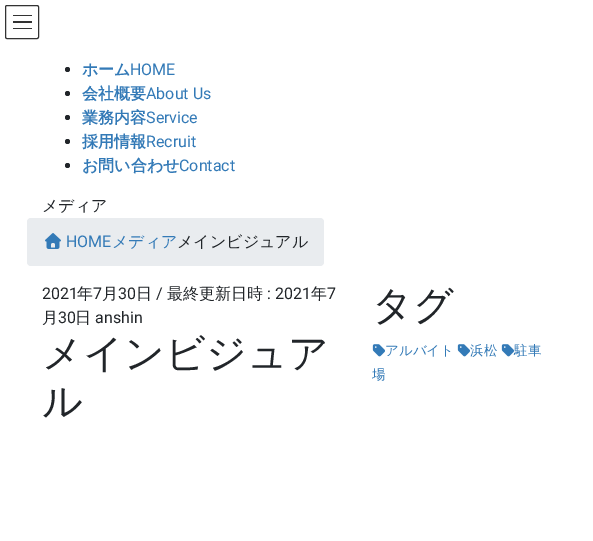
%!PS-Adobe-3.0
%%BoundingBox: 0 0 593 541
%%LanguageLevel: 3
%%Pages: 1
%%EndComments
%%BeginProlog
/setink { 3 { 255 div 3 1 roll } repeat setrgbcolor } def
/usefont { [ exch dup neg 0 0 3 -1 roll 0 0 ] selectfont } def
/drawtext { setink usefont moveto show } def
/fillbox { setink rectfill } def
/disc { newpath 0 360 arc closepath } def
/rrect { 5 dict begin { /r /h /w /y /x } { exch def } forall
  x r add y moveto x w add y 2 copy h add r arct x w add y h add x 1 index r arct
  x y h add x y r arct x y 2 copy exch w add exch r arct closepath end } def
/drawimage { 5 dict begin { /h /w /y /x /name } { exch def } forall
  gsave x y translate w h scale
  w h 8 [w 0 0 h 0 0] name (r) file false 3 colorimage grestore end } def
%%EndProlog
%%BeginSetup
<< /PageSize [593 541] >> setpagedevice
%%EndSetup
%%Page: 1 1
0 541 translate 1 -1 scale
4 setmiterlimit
0 0 593 541 255 255 255 fillbox
13 15 19 1 51 51 51 fillbox
13 21 19 2 51 51 51 fillbox
13 28 19 1 51 51 51 fillbox
5.5 5.5 33 33 1.5 rrect stroke
33 37 41 setink
67.5 69.5 2.5 disc fill
(ホーム) 82 75 /WenQuanYiZenHei-Bold 16 51 122 183 drawtext
(HOME) 130 75 /Roboto-Regular 16 51 122 183 drawtext
33 37 41 setink
67.5 93.5 2.5 disc fill
(会社概要) 82 99 /WenQuanYiZenHei-Bold 16 51 122 183 drawtext
(About Us) 146 99 /Roboto-Regular 16 51 122 183 drawtext
33 37 41 setink
67.5 117.5 2.5 disc fill
(業務内容) 82 123 /WenQuanYiZenHei-Bold 16 51 122 183 drawtext
(Service) 146 123 /Roboto-Regular 16 51 122 183 drawtext
33 37 41 setink
67.5 141.5 2.5 disc fill
(採用情報) 82 147 /WenQuanYiZenHei-Bold 16 51 122 183 drawtext
(Recruit) 146 147 /Roboto-Regular 16 51 122 183 drawtext
33 37 41 setink
67.5 165.5 2.5 disc fill
(お問い合わせ) 82 171 /WenQuanYiZenHei-Bold 16 51 122 183 drawtext
(Contact) 179 171 /Roboto-Regular 16 51 122 183 drawtext
(メディア) 42 211 /WenQuanYiZenHei-Medium 16 33 37 41 drawtext
233 236 239 setink
27 218 297 48 4 rrect fill
(assets/img1.rgb) 45 233 16 16 drawimage
(HOME) 66 247 /Roboto-Regular 16 51 122 183 drawtext
(メディア) 112 247 /WenQuanYiZenHei-Medium 16 51 122 183 drawtext
(メインビジュアル) 177 247 /WenQuanYiZenHei-Medium 16 33 37 41 drawtext
(2021) 42 299 /Roboto-Regular 16 33 37 41 drawtext
(年) 77 299 /WenQuanYiZenHei-Medium 16 33 37 41 drawtext
(7) 93 299 /Roboto-Regular 16 33 37 41 drawtext
(月) 102 299 /WenQuanYiZenHei-Medium 16 33 37 41 drawtext
(30) 118 299 /Roboto-Regular 16 33 37 41 drawtext
(日) 136 299 /WenQuanYiZenHei-Medium 16 33 37 41 drawtext
(/) 156 299 /Roboto-Regular 16 33 37 41 drawtext
(最終更新日時) 167 299 /WenQuanYiZenHei-Medium 16 33 37 41 drawtext
(: 2021) 267 299 /Roboto-Regular 16 33 37 41 drawtext
(年) 311 299 /WenQuanYiZenHei-Medium 16 33 37 41 drawtext
(7) 327 299 /Roboto-Regular 16 33 37 41 drawtext
(月) 42 323 /WenQuanYiZenHei-Medium 16 33 37 41 drawtext
(30) 58 323 /Roboto-Regular 16 33 37 41 drawtext
(日) 75 323 /WenQuanYiZenHei-Medium 16 33 37 41 drawtext
(anshin) 95 323 /Roboto-Regular 16 33 37 41 drawtext
(メインビジュア) 42 367 /WenQuanYiZenHei-Medium 40 33 37 41 drawtext
(ル) 42 415 /WenQuanYiZenHei-Medium 40 33 37 41 drawtext
(タグ) 372 319 /WenQuanYiZenHei-Medium 40 33 37 41 drawtext
(assets/img2.rgb) 372 344 13 13 drawimage
(アルバイト) 385 355 /WenQuanYiZenHei-Medium 13.5 51 122 183 drawtext
(assets/img2.rgb) 457 344 13 13 drawimage
(浜松) 470 355 /WenQuanYiZenHei-Medium 13.5 51 122 183 drawtext
(assets/img2.rgb) 501 344 13 13 drawimage
(駐車) 514 355 /WenQuanYiZenHei-Medium 13.5 51 122 183 drawtext
(場) 372 379 /WenQuanYiZenHei-Medium 13.5 51 122 183 drawtext
showpage
%%EOF
